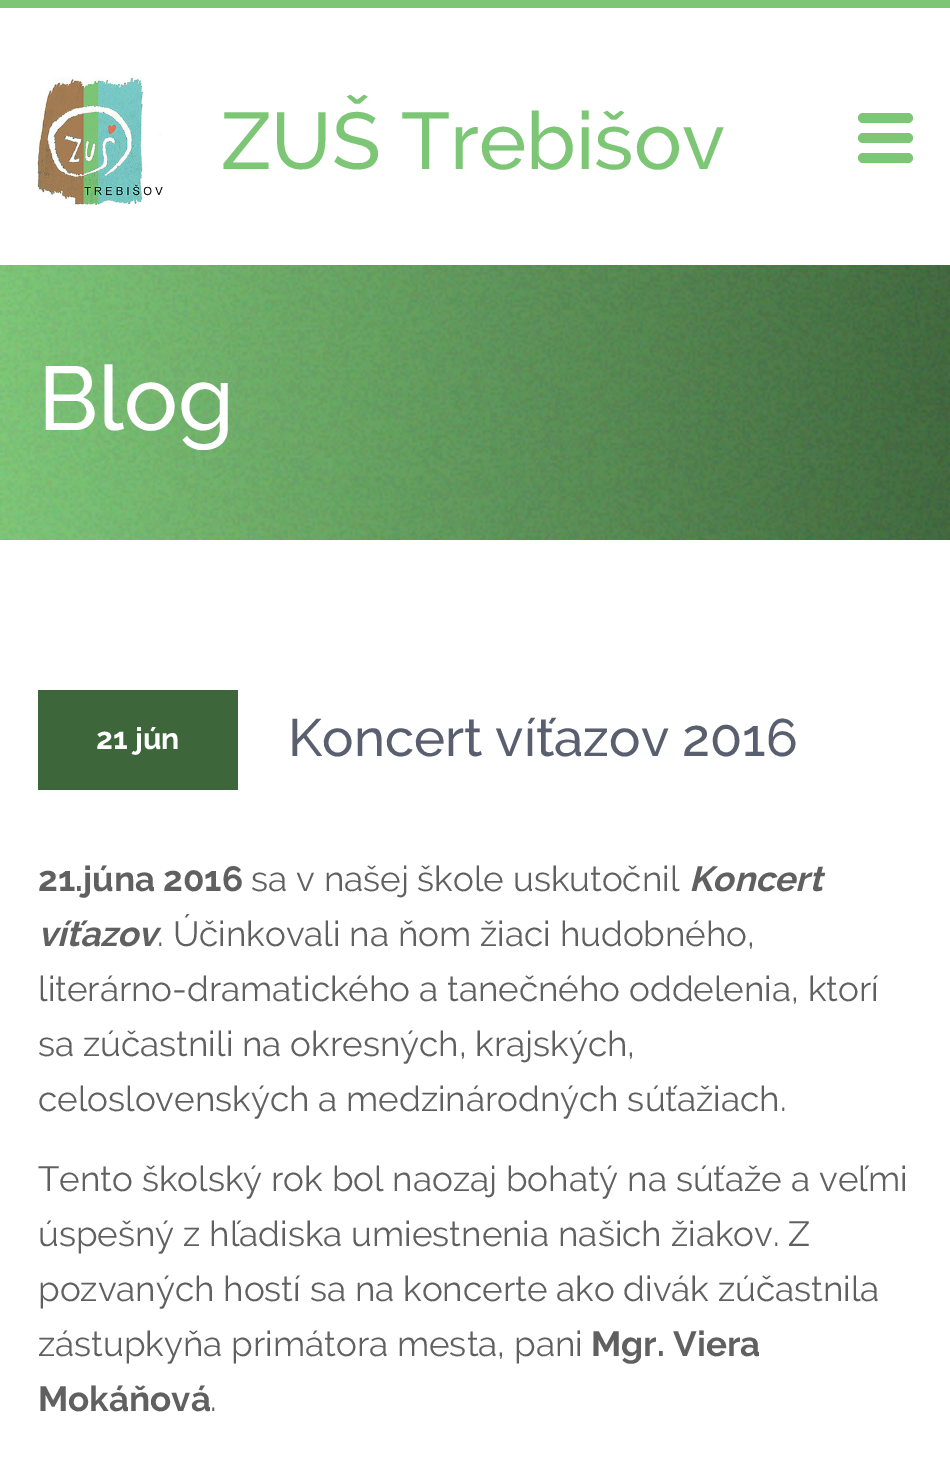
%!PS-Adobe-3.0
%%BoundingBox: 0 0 950 1471
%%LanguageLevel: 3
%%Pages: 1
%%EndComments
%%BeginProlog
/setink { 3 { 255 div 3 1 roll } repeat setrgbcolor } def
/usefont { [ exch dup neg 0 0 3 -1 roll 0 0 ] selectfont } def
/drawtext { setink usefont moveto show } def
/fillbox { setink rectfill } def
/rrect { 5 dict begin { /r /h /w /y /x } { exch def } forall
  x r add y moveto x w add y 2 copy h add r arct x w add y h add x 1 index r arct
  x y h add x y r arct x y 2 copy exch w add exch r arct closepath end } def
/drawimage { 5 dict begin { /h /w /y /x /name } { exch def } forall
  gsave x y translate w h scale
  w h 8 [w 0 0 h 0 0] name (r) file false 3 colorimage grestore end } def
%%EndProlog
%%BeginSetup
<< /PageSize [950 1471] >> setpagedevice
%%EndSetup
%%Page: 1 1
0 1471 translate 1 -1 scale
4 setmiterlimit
0 0 950 1471 255 255 255 fillbox
0 0 950 8 124 198 118 fillbox
(assets/img1.rgb) 37 77 126 128 drawimage
(ZUŠ Trebišov) 221 169 /Raleway-Medium 80 124 198 118 drawtext
858 113 55 10 5 rrect fill
858 133 55 10 5 rrect fill
858 153 55 10 5 rrect fill
gsave 0 265 moveto 950 265 lineto 950 540 lineto 0 540 lineto closepath clip newpath
<< /ShadingType 2 /ColorSpace /DeviceRGB /Coords [0 403 950 403] /Extend [true true] /Function << /FunctionType 2 /Domain [0 1] /C0 [0.486 0.776 0.463] /C1 [0.243 0.4 0.231] /N 1 >> >> shfill grestore
(assets/img2.rgb) 0 265 950 275 drawimage
(Blog) 38 430 /Raleway-Medium 90 255 255 255 drawtext
38 690 200 100 62 102 59 fillbox
(21 jún) 96 749 /Raleway-Bold 30 255 255 255 drawtext
(Koncert víťazov 2016) 288 756 /Raleway-Medium 52.5 89 95 111 drawtext
(21.júna 2016) 38 891 /Raleway-Bold 35 96 96 96 drawtext
(sa v našej škole uskutočnil) 251 891 /Raleway-Regular 35 96 96 96 drawtext
(Koncert) 689 891 /Raleway-BoldItalic 35 96 96 96 drawtext
(víťazov) 38 946 /Raleway-BoldItalic 35 96 96 96 drawtext
(. Účinkovali na ňom žiaci hudobného,) 157 946 /Raleway-Regular 35 96 96 96 drawtext
(literárno-dramatického a tanečného oddelenia, ktorí) 38 1001 /Raleway-Regular 35 96 96 96 drawtext
(sa zúčastnili na okresných, krajských,) 38 1056 /Raleway-Regular 35 96 96 96 drawtext
(celoslovenských a medzinárodných súťažiach.) 38 1111 /Raleway-Regular 35 96 96 96 drawtext
(Tento školský rok bol naozaj bohatý na súťaže a veľmi) 38 1191 /Raleway-Regular 35 96 96 96 drawtext
(úspešný z hľadiska umiestnenia našich žiakov. Z) 38 1246 /Raleway-Regular 35 96 96 96 drawtext
(pozvaných hostí sa na koncerte ako divák zúčastnila) 38 1301 /Raleway-Regular 35 96 96 96 drawtext
(zástupkyňa primátora mesta, pani) 38 1356 /Raleway-Regular 35 96 96 96 drawtext
(Mgr. Viera) 591 1356 /Raleway-Bold 35 96 96 96 drawtext
(Mokáňová) 38 1411 /Raleway-Bold 35 96 96 96 drawtext
(.) 210 1411 /Raleway-Regular 35 96 96 96 drawtext
showpage
%%EOF
